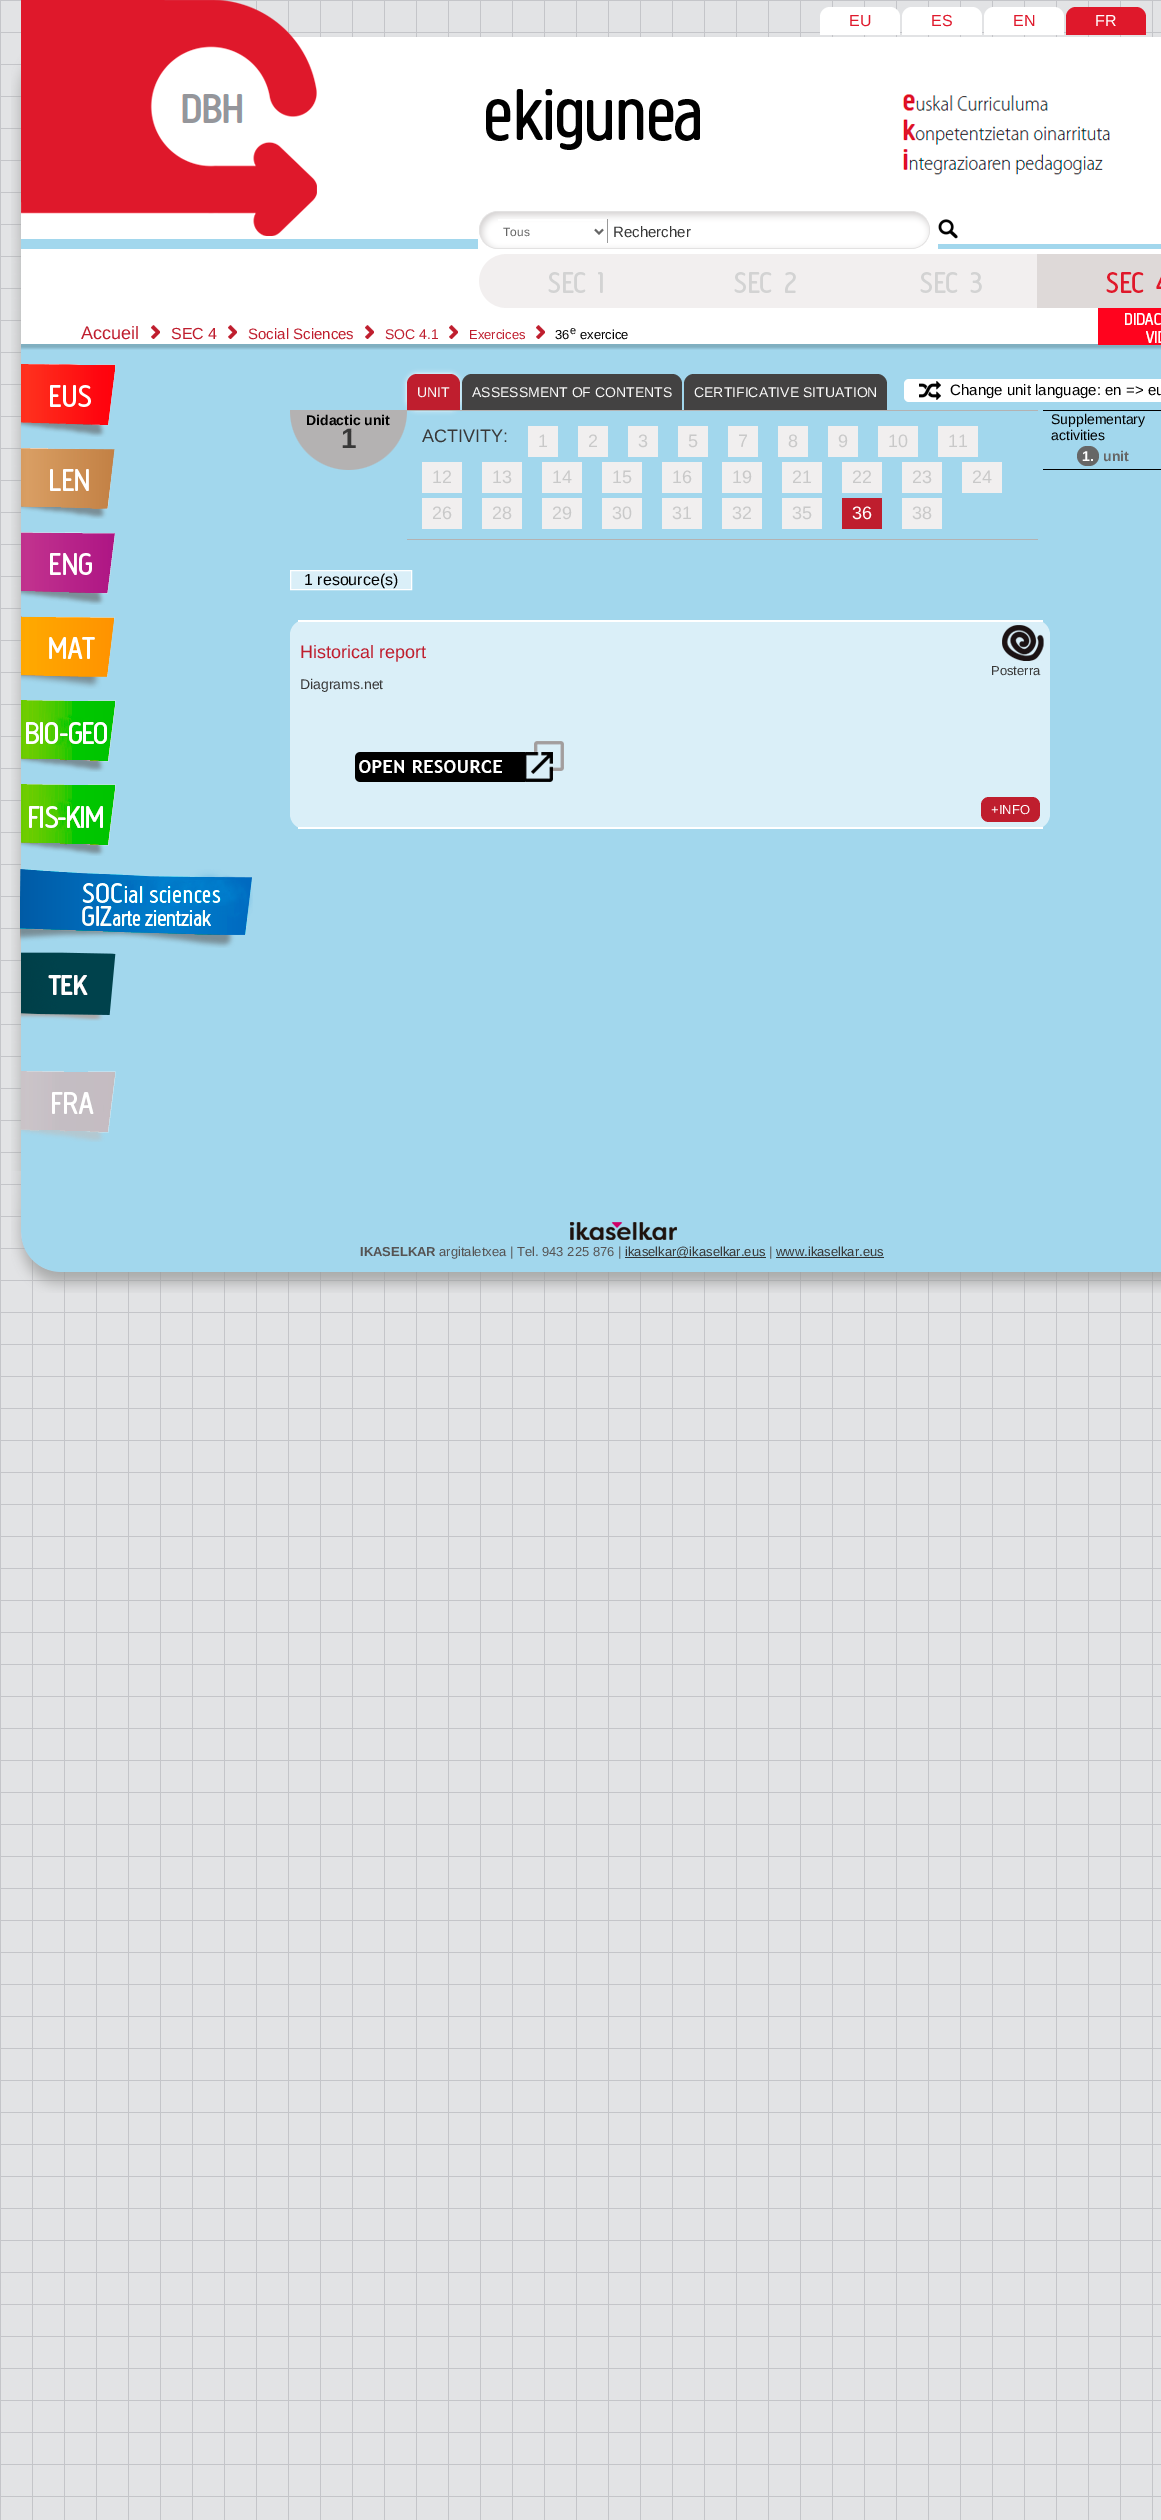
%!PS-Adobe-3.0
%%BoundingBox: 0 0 1161 2520
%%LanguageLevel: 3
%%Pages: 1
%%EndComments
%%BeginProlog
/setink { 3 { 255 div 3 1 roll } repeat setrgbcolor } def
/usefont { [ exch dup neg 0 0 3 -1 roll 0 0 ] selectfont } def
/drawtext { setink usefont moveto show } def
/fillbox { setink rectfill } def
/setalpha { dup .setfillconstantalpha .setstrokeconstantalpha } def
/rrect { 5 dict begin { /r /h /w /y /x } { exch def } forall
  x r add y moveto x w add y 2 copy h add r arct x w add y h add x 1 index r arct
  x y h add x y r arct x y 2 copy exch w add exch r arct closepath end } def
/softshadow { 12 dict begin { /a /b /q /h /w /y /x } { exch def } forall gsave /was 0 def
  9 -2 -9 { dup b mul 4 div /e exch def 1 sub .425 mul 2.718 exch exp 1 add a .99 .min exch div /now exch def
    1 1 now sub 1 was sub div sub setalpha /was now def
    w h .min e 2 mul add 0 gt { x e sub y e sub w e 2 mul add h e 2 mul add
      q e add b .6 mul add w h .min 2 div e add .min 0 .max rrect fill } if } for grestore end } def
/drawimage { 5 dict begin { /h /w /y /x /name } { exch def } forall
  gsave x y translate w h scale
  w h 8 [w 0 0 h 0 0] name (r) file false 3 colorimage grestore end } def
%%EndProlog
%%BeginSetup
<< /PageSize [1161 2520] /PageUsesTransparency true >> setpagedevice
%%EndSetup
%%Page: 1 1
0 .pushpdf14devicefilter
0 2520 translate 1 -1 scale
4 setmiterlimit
0 0 1161 2520 226 227 229 fillbox
(assets/img1.rgb) 0 0 1161 2520 drawimage
(assets/img2.rgb) 11 0 1150 239 drawimage
255 255 255 setink
830 7 moveto 890 7 lineto 895.5 7 900 11.5 900 17 curveto 900 35 lineto 820 35 lineto 820 17 lineto 820 11.5 824.5 7 830 7 curveto closepath fill
(EU) 849 26 /LiberationSans-Regular 16 223 24 43 drawtext
255 255 255 setink
912 7 moveto 972 7 lineto 977.5 7 982 11.5 982 17 curveto 982 35 lineto 902 35 lineto 902 17 lineto 902 11.5 906.5 7 912 7 curveto closepath fill
(ES) 931 26 /LiberationSans-Regular 16 223 24 43 drawtext
255 255 255 setink
994 7 moveto 1054 7 lineto 1059.5 7 1064 11.5 1064 17 curveto 1064 35 lineto 984 35 lineto 984 17 lineto 984 11.5 988.5 7 994 7 curveto closepath fill
(EN) 1013 26 /LiberationSans-Regular 16 223 24 43 drawtext
1076 7 moveto 1136 7 lineto 1141.5 7 1146 11.5 1146 17 curveto 1146 35 lineto 1066 35 lineto 1066 17 lineto 1066 11.5 1070.5 7 1076 7 curveto closepath fill
(FR) 1095 26 /LiberationSans-Regular 16 255 255 255 drawtext
(assets/img5.rgb) 11 239 1150 932 drawimage
938 239 223 5 255 255 255 fillbox
478 239 460 10 255 255 255 fillbox
(assets/img3.rgb) 479 211 451 38 drawimage
498 219 109 2 255 255 255 fillbox
607 219 1 25 153 153 153 fillbox
607 243 1 1 255 255 255 fillbox
102 102 102 setink
2 setlinewidth
595 229.5 moveto 599 233.5 lineto 603 229.5 lineto stroke
(Tous) 503 236 /LiberationSans-Regular 12 102 102 102 drawtext
(Rechercher) 613 237 /LiberationSans-Regular 15 56 56 56 drawtext
(assets/img4.rgb) 938 219 20 20 drawimage
21 249 1140 95 255 255 255 fillbox
(Accueil) 81 339 /LiberationSans-Regular 18 191 30 46 drawtext
(assets/img6.rgb) 151 325 9 14 drawimage
(SEC 4) 171 339 /LiberationSans-Regular 16 191 30 46 drawtext
(assets/img6.rgb) 228 325 9 14 drawimage
(Social Sciences) 248 339 /LiberationSans-Regular 15 191 30 46 drawtext
(assets/img6.rgb) 365 325 9 14 drawimage
(SOC 4.1) 385 339 /LiberationSans-Regular 14 191 30 46 drawtext
(assets/img6.rgb) 449 325 9 14 drawimage
(Exercices) 469 339 /LiberationSans-Regular 13 191 30 46 drawtext
(assets/img6.rgb) 536 325 9 14 drawimage
(36) 555 339 /LiberationSans-Regular 13 0 0 0 drawtext
(e) 570 334 /LiberationSans-Regular 11 0 0 0 drawtext
(exercice) 580 339 /LiberationSans-Regular 13 0 0 0 drawtext
(assets/img7.rgb) 479 254 186 54 drawimage
(assets/img8.rgb) 665 254 186 54 drawimage
(assets/img9.rgb) 851 254 186 54 drawimage
(assets/img10.rgb) 1037 254 124 54 drawimage
(assets/img12.rgb) 21 344 1140 10 drawimage
(assets/img11.rgb) 1098 308 63 37 drawimage
(assets/img13.rgb) 21 364 95 73 drawimage
(assets/img14.rgb) 21 448 94 71 drawimage
(assets/img15.rgb) 21 532 94 73 drawimage
(assets/img16.rgb) 21 616 94 73 drawimage
(assets/img17.rgb) 21 700 95 72 drawimage
(assets/img18.rgb) 21 784 95 72 drawimage
(assets/img19.rgb) 20 869 233 79 drawimage
(assets/img20.rgb) 21 952 95 69 drawimage
(assets/img21.rgb) 21 1071 95 71 drawimage
255 255 255 setink
407 374 53 36 10 2.5 1 softshadow
191 30 46 setink
417 374 moveto 450 374 lineto 455.5 374 460 378.5 460 384 curveto 460 410 lineto 407 410 lineto 407 384 lineto 407 378.5 411.5 374 417 374 curveto closepath fill
(UNIT) 417 397 /LiberationSans-Regular 14 248 248 248 drawtext
67 66 66 setink
472 374 moveto 672 374 lineto 677.5 374 682 378.5 682 384 curveto 682 410 lineto 462 410 lineto 462 384 lineto 462 378.5 466.5 374 472 374 curveto closepath fill
(ASSESSMENT OF CONTENTS) 472 397 /LiberationSans-Regular 14 248 248 248 drawtext
67 66 66 setink
694 374 moveto 877 374 lineto 882.5 374 887 378.5 887 384 curveto 887 410 lineto 684 410 lineto 684 384 lineto 684 378.5 688.5 374 694 374 curveto closepath fill
(CERTIFICATIVE SITUATION) 694 397 /LiberationSans-Regular 14 248 248 248 drawtext
255 255 255 setink
904 379 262 23 5 rrect fill
(assets/img22.rgb) 919 381 22 19 drawimage
(Change unit language: en => eu) 950 395 /LiberationSans-Regular 15 0 0 0 drawtext
(assets/img23.rgb) 290 410 117 60 drawimage
(Didactic unit) 306 425 /LiberationSans-Bold 14 0 0 0 drawtext
(1) 341 448 /LiberationSans-Bold 28 56 56 56 drawtext
407 410 631 1 180 178 178 fillbox
407 539 631 1 180 178 178 fillbox
(ACTIVITY:) 422 442 /LiberationSans-Regular 18 56 56 56 drawtext
528 426 30 31 241 239 239 fillbox
(1) 538 447 /LiberationSans-Regular 18 201 201 201 drawtext
578 426 30 31 241 239 239 fillbox
(2) 588 447 /LiberationSans-Regular 18 201 201 201 drawtext
628 426 30 31 241 239 239 fillbox
(3) 638 447 /LiberationSans-Regular 18 201 201 201 drawtext
678 426 30 31 241 239 239 fillbox
(5) 688 447 /LiberationSans-Regular 18 201 201 201 drawtext
728 426 30 31 241 239 239 fillbox
(7) 738 447 /LiberationSans-Regular 18 201 201 201 drawtext
778 426 30 31 241 239 239 fillbox
(8) 788 447 /LiberationSans-Regular 18 201 201 201 drawtext
828 426 30 31 241 239 239 fillbox
(9) 838 447 /LiberationSans-Regular 18 201 201 201 drawtext
878 426 40 31 241 239 239 fillbox
(10) 888 447 /LiberationSans-Regular 18 201 201 201 drawtext
938 426 40 31 241 239 239 fillbox
(11) 948 447 /LiberationSans-Regular 18 201 201 201 drawtext
422 462 40 31 241 239 239 fillbox
(12) 432 483 /LiberationSans-Regular 18 201 201 201 drawtext
482 462 40 31 241 239 239 fillbox
(13) 492 483 /LiberationSans-Regular 18 201 201 201 drawtext
542 462 40 31 241 239 239 fillbox
(14) 552 483 /LiberationSans-Regular 18 201 201 201 drawtext
602 462 40 31 241 239 239 fillbox
(15) 612 483 /LiberationSans-Regular 18 201 201 201 drawtext
662 462 40 31 241 239 239 fillbox
(16) 672 483 /LiberationSans-Regular 18 201 201 201 drawtext
722 462 40 31 241 239 239 fillbox
(19) 732 483 /LiberationSans-Regular 18 201 201 201 drawtext
782 462 40 31 241 239 239 fillbox
(21) 792 483 /LiberationSans-Regular 18 201 201 201 drawtext
842 462 40 31 241 239 239 fillbox
(22) 852 483 /LiberationSans-Regular 18 201 201 201 drawtext
902 462 40 31 241 239 239 fillbox
(23) 912 483 /LiberationSans-Regular 18 201 201 201 drawtext
962 462 40 31 241 239 239 fillbox
(24) 972 483 /LiberationSans-Regular 18 201 201 201 drawtext
422 498 40 31 241 239 239 fillbox
(26) 432 519 /LiberationSans-Regular 18 201 201 201 drawtext
482 498 40 31 241 239 239 fillbox
(28) 492 519 /LiberationSans-Regular 18 201 201 201 drawtext
542 498 40 31 241 239 239 fillbox
(29) 552 519 /LiberationSans-Regular 18 201 201 201 drawtext
602 498 40 31 241 239 239 fillbox
(30) 612 519 /LiberationSans-Regular 18 201 201 201 drawtext
662 498 40 31 241 239 239 fillbox
(31) 672 519 /LiberationSans-Regular 18 201 201 201 drawtext
722 498 40 31 241 239 239 fillbox
(32) 732 519 /LiberationSans-Regular 18 201 201 201 drawtext
782 498 40 31 241 239 239 fillbox
(35) 792 519 /LiberationSans-Regular 18 201 201 201 drawtext
842 498 40 31 191 30 46 fillbox
(36) 852 519 /LiberationSans-Regular 18 255 255 255 drawtext
902 498 40 31 241 239 239 fillbox
(38) 912 519 /LiberationSans-Regular 18 201 201 201 drawtext
1043 410 118 1 0 0 0 fillbox
1043 469 118 1 0 0 0 fillbox
(Supplementary) 1051 424 /LiberationSans-Regular 14 0 0 0 drawtext
(activities) 1051 440 /LiberationSans-Regular 14 0 0 0 drawtext
102 102 102 setink
1077 446 22 20 10 rrect fill
(1.) 1082 461 /LiberationSans-Bold 14 255 255 255 drawtext
(unit) 1103 461 /LiberationSans-Bold 14 102 102 102 drawtext
218 239 248 setink
290.5 570.5 moveto 411.5 570.5 lineto 411.5 589.5 lineto 290.5 589.5 lineto closepath gsave fill grestore
255 255 255 setink
1 setlinewidth
stroke
(1 resource\(s\)) 304 585 /LiberationSans-Regular 16 0 0 0 drawtext
218 239 248 setink
290 620 760 209 15 rrect fill
298 620 745 2 255 255 255 fillbox
298 827 745 2 255 255 255 fillbox
(Historical report) 300 658 /LiberationSans-Regular 18 191 30 46 drawtext
(assets/img24.rgb) 1002 625 42 36 drawimage
(Posterra) 991 675 /LiberationSans-Regular 13 56 56 56 drawtext
(Diagrams.net) 300 689 /LiberationSans-Regular 14 56 56 56 drawtext
(assets/img25.rgb) 355 741 209 41 drawimage
191 30 46 setink
981 797 59 25 8 rrect fill
(+INFO) 991 814 /LiberationSans-Regular 13 255 255 255 drawtext
(assets/img26.rgb) 11 1171 1150 122 drawimage
(assets/img27.rgb) 570 1222 107 18 drawimage
(IKASELKAR) 360 1256 /LiberationSans-Bold 13 85 83 83 drawtext
(argitaletxea | Tel. 943 225 876 |) 439 1256 /LiberationSans-Regular 13 85 83 83 drawtext
625 1257 141 1 51 51 51 fillbox
(ikaselkar@ikaselkar.eus) 625 1256 /LiberationSans-Regular 13 56 56 56 drawtext
(|) 769 1256 /LiberationSans-Regular 13 85 83 83 drawtext
(www.ikaselkar.eus) 776 1256 /LiberationSans-Regular 13 56 56 56 drawtext
776 1257 108 1 51 51 51 fillbox
.poppdf14devicefilter showpage
%%EOF
